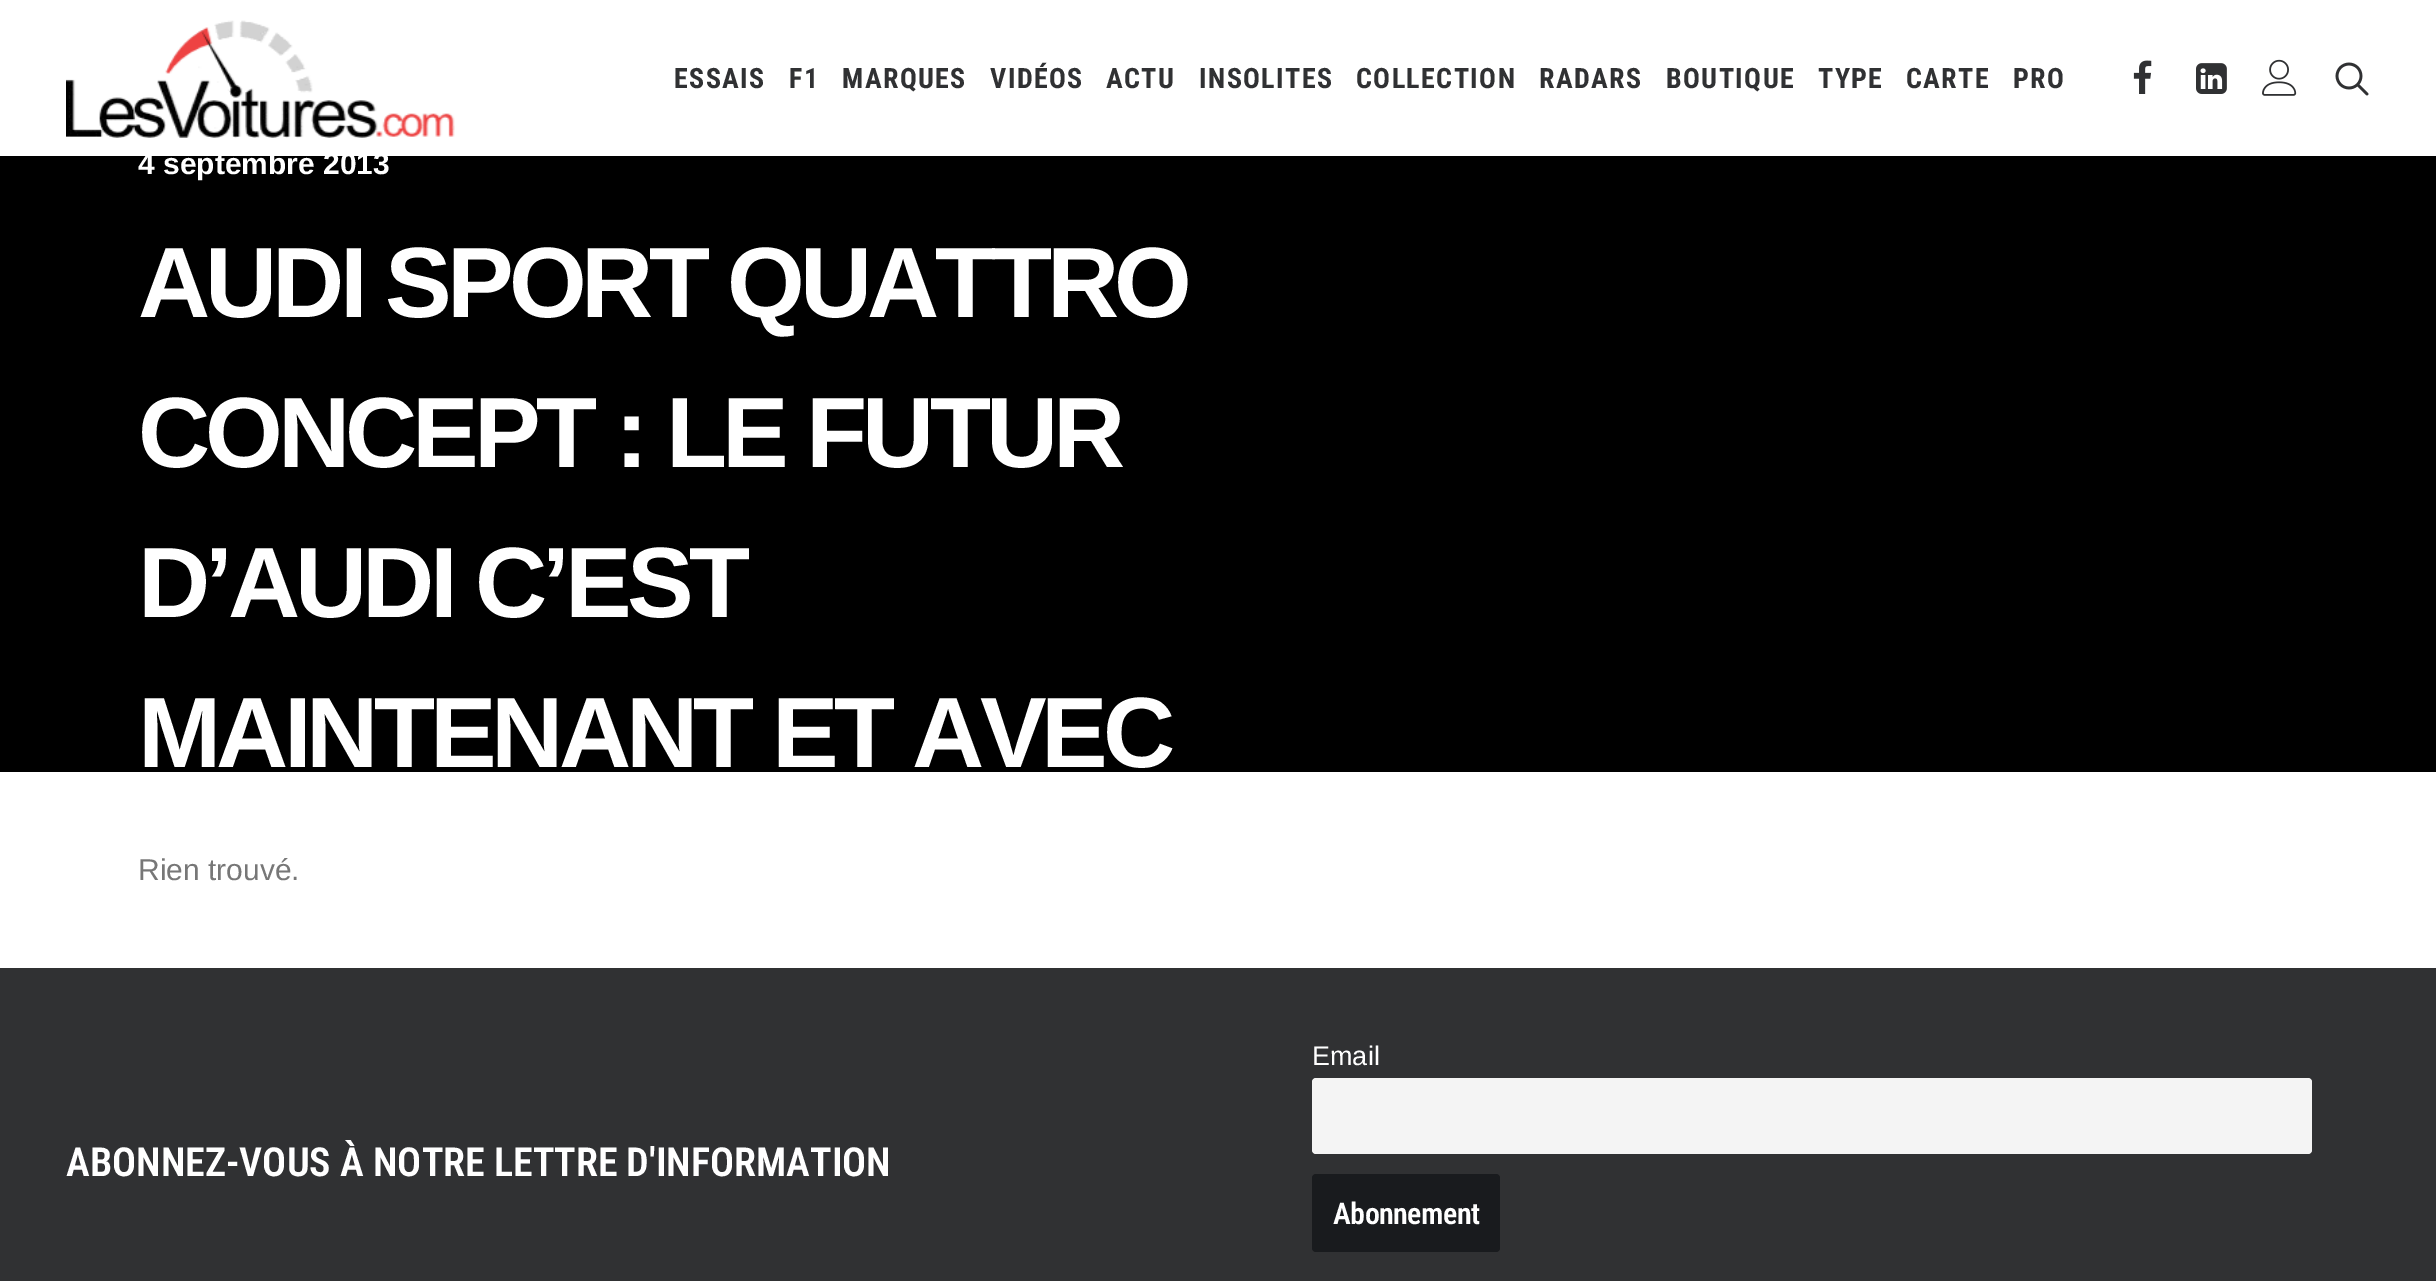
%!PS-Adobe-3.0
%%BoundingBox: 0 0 2436 1281
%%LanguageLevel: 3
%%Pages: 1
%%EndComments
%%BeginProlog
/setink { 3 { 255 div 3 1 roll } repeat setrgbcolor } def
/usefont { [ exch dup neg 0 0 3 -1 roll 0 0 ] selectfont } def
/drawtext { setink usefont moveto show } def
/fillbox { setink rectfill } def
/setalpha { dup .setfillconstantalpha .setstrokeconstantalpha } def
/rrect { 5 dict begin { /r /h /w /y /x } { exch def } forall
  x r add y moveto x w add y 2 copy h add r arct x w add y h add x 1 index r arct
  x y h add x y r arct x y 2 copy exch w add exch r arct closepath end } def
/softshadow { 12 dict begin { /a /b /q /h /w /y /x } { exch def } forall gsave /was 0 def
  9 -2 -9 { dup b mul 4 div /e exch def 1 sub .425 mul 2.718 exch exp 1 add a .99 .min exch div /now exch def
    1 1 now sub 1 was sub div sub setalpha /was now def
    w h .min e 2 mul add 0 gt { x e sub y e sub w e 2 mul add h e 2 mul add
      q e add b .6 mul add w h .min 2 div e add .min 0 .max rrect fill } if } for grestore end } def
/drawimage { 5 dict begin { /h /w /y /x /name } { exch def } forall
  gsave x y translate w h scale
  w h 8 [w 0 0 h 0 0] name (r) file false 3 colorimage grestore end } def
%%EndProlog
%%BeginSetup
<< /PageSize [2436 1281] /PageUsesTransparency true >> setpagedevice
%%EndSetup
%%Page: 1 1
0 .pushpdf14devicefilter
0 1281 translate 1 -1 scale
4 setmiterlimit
0 0 2436 1281 255 255 255 fillbox
0 156 2436 616 0 0 0 fillbox
-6 0 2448 156 0 30 0.07 softshadow
0 0 2436 156 255 255 255 fillbox
(assets/img1.rgb) 66 20 389 118 drawimage
/RobotoCondensed-Bold 28 usefont
48 49 51 setink
674 88 moveto 1.4 0 (ESSAIS) ashow
789 88 moveto 1.4 0 (F1) ashow
842 88 moveto 1.4 0 (MARQUES) ashow
990 88 moveto 1.4 0 (VIDÉOS) ashow
1106 88 moveto 1.4 0 (ACTU) ashow
1199 88 moveto 1.4 0 (INSOLITES) ashow
1356 88 moveto 1.4 0 (COLLECTION) ashow
1539 88 moveto 1.4 0 (RADARS) ashow
1666 88 moveto 1.4 0 (BOUTIQUE) ashow
1818 88 moveto 1.4 0 (TYPE) ashow
1906 88 moveto 1.4 0 (CARTE) ashow
2013 88 moveto 1.4 0 (PRO) ashow
(assets/img2.rgb) 2133 60 19 34 drawimage
(assets/img3.rgb) 2196 63 31 31 drawimage
(assets/img4.rgb) 2262 59 35 37 drawimage
(assets/img5.rgb) 2335 62 34 34 drawimage
(4 septembre 2013) 138 174 /LiberationSans-Bold 30 255 255 255 drawtext
/LiberationSans-Bold 100 usefont
138 317 moveto -5 0 (AUDI SPORT QUATTRO) ashow
138 467 moveto -5 0 (CONCEPT : LE FUTUR) ashow
138 617 moveto -5 0 (D’AUDI C’EST) ashow
138 767 moveto -5 0 (MAINTENANT ET AVEC) ashow
(Rien trouvé.) 138 880 /LiberationSans-Regular 30 119 119 119 drawtext
0 968 2436 313 48 49 51 fillbox
(ABONNEZ-VOUS À NOTRE LETTRE D'INFORMATION) 66 1176 /RobotoCondensed-SemiBold 40 255 255 255 drawtext
(Email) 1312 1065 /LiberationSans-Regular 27 255 255 255 drawtext
244 244 244 setink
1312 1078 1000 76 4 rrect fill
25 27 30 setink
1312 1174 188 78 4 rrect fill
/RobotoCondensed-SemiBold 30 usefont
255 255 255 setink
1333 1224 moveto -0.5 0 (Abonnement) ashow
.poppdf14devicefilter showpage
%%EOF
